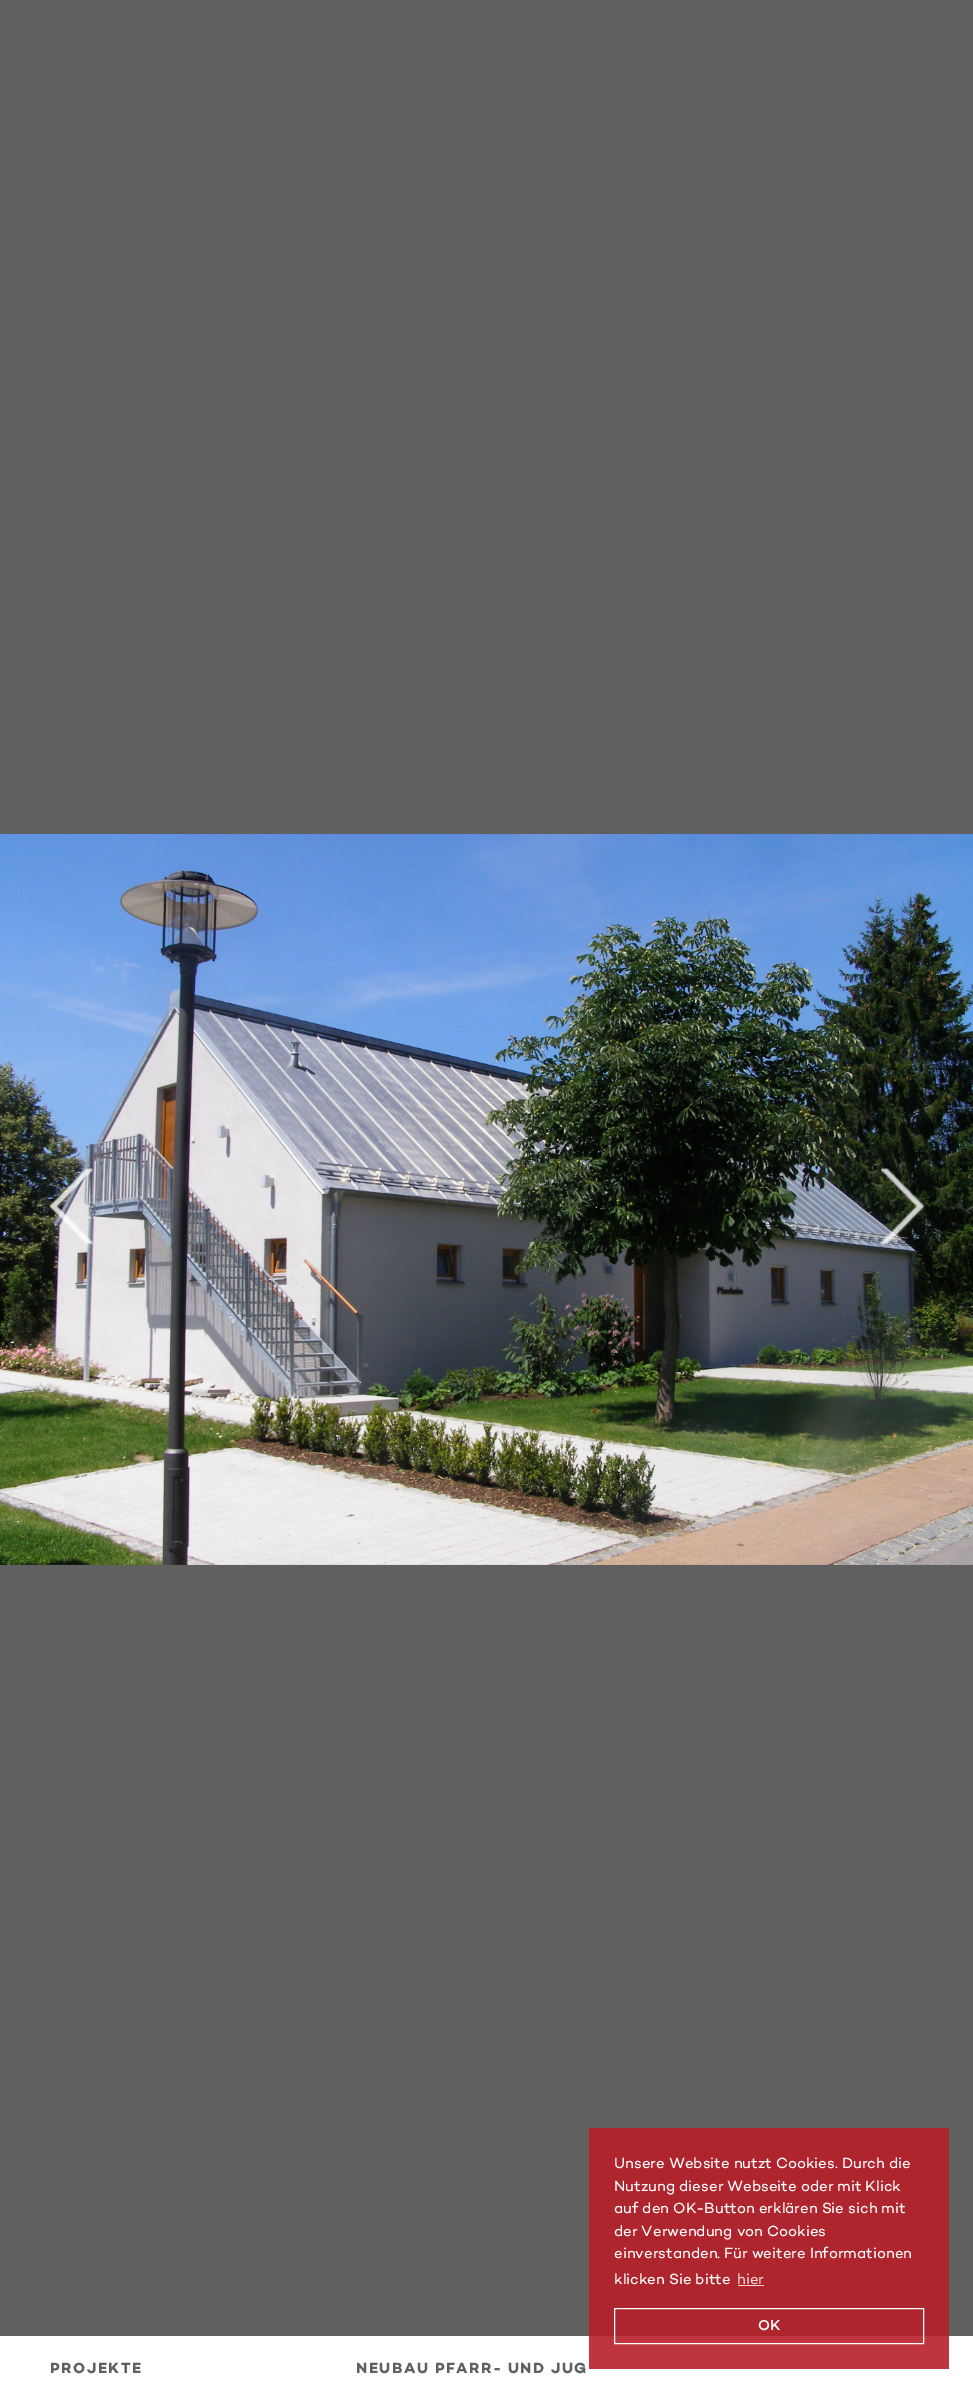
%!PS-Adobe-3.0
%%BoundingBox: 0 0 973 2398
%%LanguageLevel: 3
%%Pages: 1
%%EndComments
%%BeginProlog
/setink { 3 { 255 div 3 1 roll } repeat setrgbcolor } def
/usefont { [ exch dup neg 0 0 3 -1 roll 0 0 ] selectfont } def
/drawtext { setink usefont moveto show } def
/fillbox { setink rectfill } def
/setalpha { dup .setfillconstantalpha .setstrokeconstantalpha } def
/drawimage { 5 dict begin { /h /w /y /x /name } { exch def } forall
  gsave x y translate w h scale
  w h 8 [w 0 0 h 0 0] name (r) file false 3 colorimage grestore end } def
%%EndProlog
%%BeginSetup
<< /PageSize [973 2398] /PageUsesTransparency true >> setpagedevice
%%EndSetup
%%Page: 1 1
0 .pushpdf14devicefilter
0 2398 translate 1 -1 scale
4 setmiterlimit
0 0 973 2398 96 96 96 fillbox
(assets/img1.rgb) 0 834 973 731 drawimage
0 2336 973 62 255 255 255 fillbox
0.9 setalpha
589 2128 360 241 183 31 41 fillbox
1 setalpha
(Unsere Website nutzt Cookies. Durch die) 614 2168 /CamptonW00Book-Regular 15 255 255 255 drawtext
(Nutzung dieser Webseite oder mit Klick) 614 2191 /CamptonW00Book-Regular 15 255 255 255 drawtext
(auf den OK-Button erklären Sie sich mit) 614 2213 /CamptonW00Book-Regular 15 255 255 255 drawtext
(der Verwendung von Cookies) 614 2236 /CamptonW00Book-Regular 15 255 255 255 drawtext
(einverstanden. Für weitere Informationen) 614 2258 /CamptonW00Book-Regular 15 255 255 255 drawtext
(klicken Sie bitte) 614 2284 /CamptonW00Book-Regular 15 255 255 255 drawtext
(hier) 737 2284 /CamptonW00Book-Regular 15 239 212 213 drawtext
738 2285 26 1 239 212 213 fillbox
255 255 255 setink
614.5 2308.5 309 35 rectstroke
(OK) 758 2330 /CamptonW00Book-Bold 14 255 255 255 drawtext
(assets/img2.rgb) 50 1168 43 77 drawimage
(assets/img3.rgb) 881 1168 44 77 drawimage
/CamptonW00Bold-Bold 15 usefont
96 96 96 setink
50 2373 moveto 1.5 0 (PROJEKTE) ashow
356 2373 moveto 1.5 0 (NEUBAU PFARR- UND JUG) ashow
.poppdf14devicefilter showpage
%%EOF
